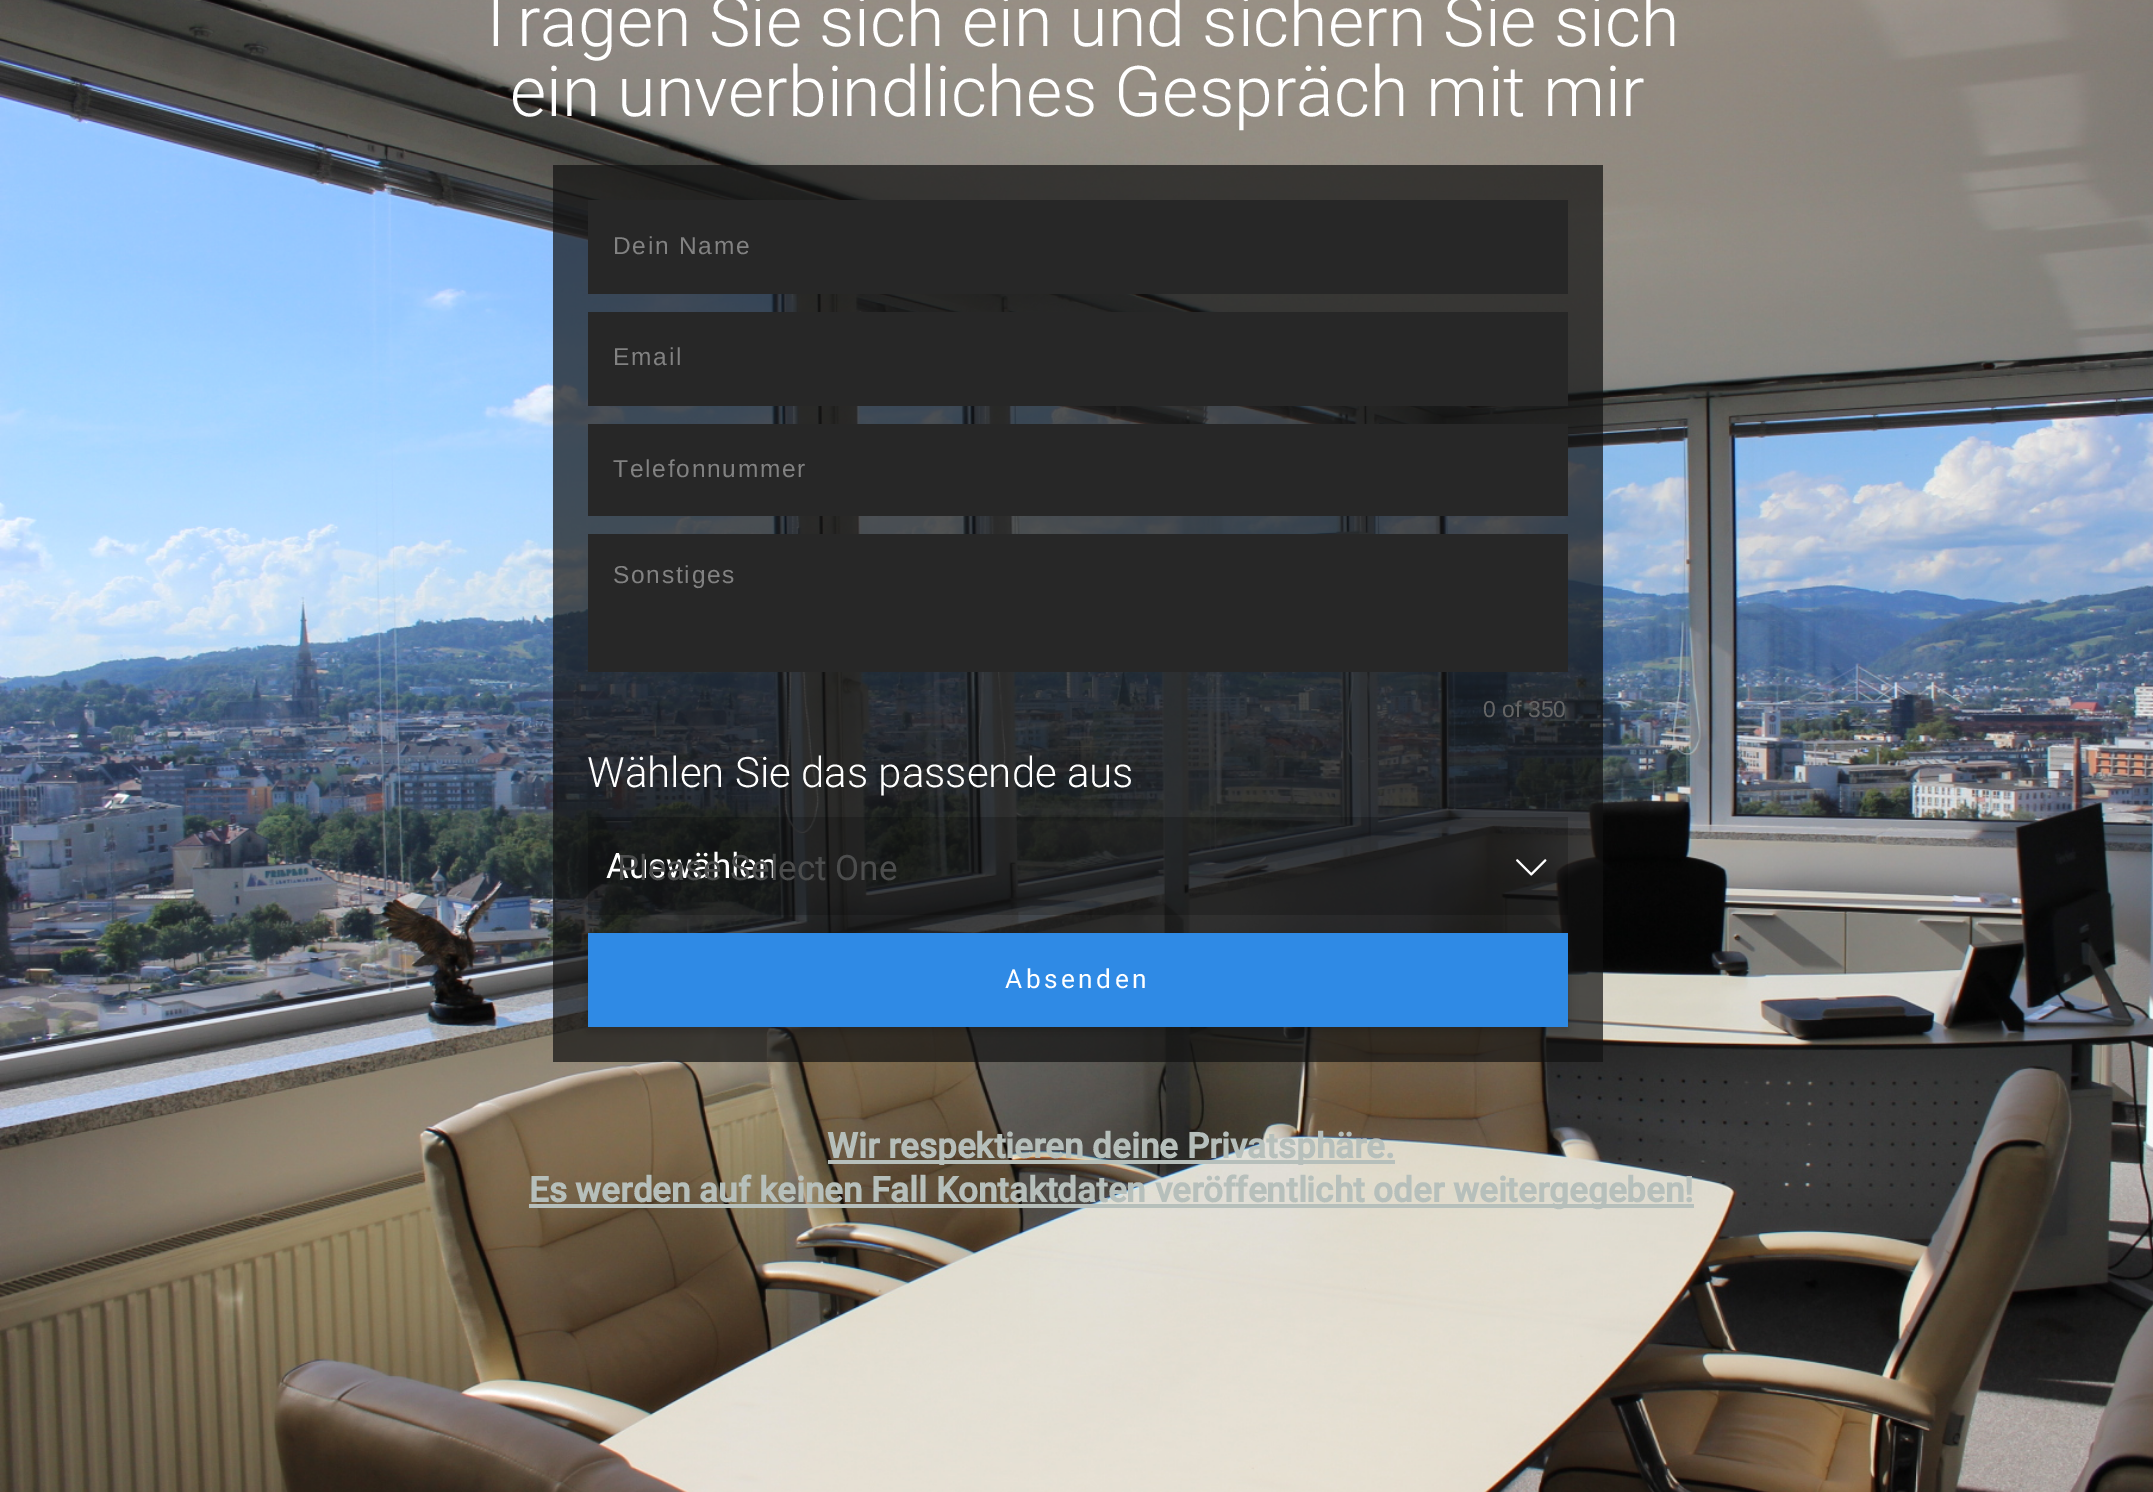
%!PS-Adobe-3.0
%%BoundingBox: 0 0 2153 1492
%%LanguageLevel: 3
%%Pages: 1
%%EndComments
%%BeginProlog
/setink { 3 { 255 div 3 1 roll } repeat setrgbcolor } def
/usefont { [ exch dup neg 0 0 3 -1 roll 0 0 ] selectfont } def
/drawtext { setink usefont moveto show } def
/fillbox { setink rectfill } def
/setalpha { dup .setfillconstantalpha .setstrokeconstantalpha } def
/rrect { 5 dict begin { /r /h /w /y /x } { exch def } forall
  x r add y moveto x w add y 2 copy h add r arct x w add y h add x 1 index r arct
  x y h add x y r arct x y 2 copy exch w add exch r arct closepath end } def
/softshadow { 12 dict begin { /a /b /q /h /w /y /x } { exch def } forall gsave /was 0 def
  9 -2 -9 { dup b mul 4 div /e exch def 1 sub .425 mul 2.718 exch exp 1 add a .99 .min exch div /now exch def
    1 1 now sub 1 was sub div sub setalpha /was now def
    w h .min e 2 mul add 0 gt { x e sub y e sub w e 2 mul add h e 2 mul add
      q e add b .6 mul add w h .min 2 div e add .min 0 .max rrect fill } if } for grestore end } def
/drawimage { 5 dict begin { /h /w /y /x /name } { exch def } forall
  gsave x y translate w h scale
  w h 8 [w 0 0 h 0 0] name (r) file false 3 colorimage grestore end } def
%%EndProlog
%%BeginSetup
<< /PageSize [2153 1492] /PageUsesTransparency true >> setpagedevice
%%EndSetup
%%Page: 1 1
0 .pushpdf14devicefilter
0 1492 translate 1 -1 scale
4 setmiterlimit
0 0 2153 1492 255 255 255 fillbox
(assets/img1.rgb) 0 0 2153 1492 drawimage
(Tragen Sie sich ein und sichern Sie sich) 475 46 /Roboto-Light 70 255 255 255 drawtext
(ein unverbindliches Gespräch mit mir) 510 116 /Roboto-Light 70 255 255 255 drawtext
0.7 setalpha
553 165 1050 897 17 17 17 fillbox
1 setalpha
588 200 980 94 39 39 39 fillbox
/LiberationSans-Regular 24.5 usefont
130 130 130 setink
613 254 moveto 1.75 0 (Dein Name) ashow
588 312 980 94 39 39 39 fillbox
130 130 130 setink
613 365 moveto 1.75 0 (Email) ashow
588 424 980 92 39 39 39 fillbox
130 130 130 setink
613 477 moveto 1.75 0 (Telefonnummer) ashow
588 534 980 138 39 39 39 fillbox
130 130 130 setink
613 583 moveto 1.75 0 (Sonstiges) ashow
(0 of 350) 1483 717 /LiberationSans-Regular 23 101 101 101 drawtext
(Wählen Sie das passende aus) 587 787 /Roboto-Light 42 255 255 255 drawtext
0.2 setalpha
588 817 980 98 0 0 0 fillbox
1 setalpha
(Auswählen) 606 878 /Roboto-Regular 35 255 255 255 drawtext
(assets/img2.rgb) 1516 859 31 17 drawimage
(Please Select One) 617 880 /Roboto-Regular 35 76 77 77 drawtext
0 0 0 setink
588 936 980 95 0 5 0.2 softshadow
588 933 980 94 47 138 229 fillbox
/Roboto-Regular 26.25 usefont
255 255 255 setink
1005 988 moveto 3.5 0 (Absenden) ashow
828 1160 567 4 182 191 187 fillbox
(Wir respektieren deine Privatsphäre.) 827 1158 /Roboto-Bold 35 182 191 187 drawtext
529 1204 1165 4 182 191 187 fillbox
(Es werden auf keinen Fall Kontaktdaten veröffentlicht oder weitergegeben!) 529 1202 /Roboto-Bold 35 182 191 187 drawtext
.poppdf14devicefilter showpage
%%EOF
